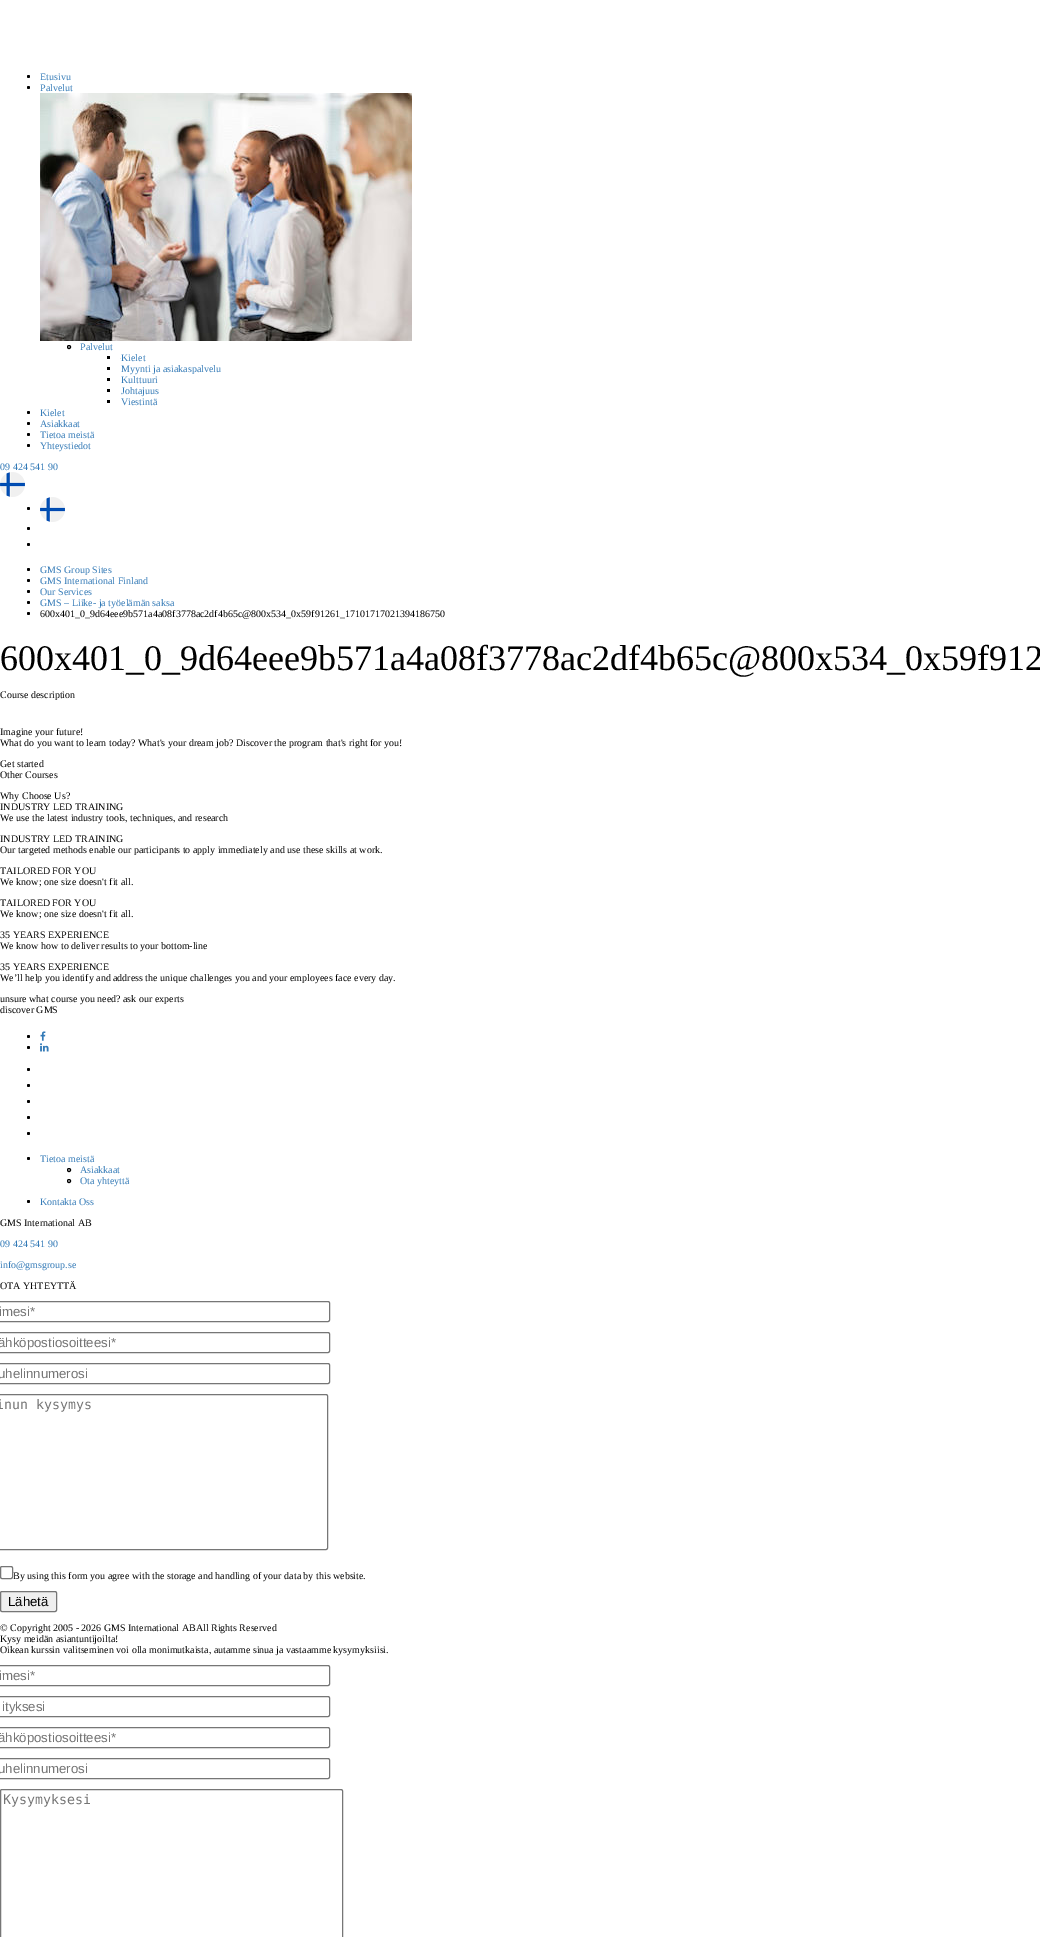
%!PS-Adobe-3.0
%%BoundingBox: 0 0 1040 1937
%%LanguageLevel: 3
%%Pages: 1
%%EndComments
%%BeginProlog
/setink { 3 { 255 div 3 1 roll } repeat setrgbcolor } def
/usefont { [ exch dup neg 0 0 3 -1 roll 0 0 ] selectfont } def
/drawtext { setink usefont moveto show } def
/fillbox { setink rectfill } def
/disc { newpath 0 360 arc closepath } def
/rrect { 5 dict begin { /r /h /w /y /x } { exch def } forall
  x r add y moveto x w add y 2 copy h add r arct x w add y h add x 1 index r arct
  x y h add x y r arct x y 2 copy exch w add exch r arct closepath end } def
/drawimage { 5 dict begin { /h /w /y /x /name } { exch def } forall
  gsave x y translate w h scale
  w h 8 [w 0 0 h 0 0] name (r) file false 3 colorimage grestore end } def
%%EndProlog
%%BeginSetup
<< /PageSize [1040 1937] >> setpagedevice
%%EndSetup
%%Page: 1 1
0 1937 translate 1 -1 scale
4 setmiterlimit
0 0 1040 1937 255 255 255 fillbox
0 0 0 setink
28.5 76.5 1.5 disc fill
(Etusivu) 40 80 /LiberationSerif-Regular 10 51 122 183 drawtext
0 0 0 setink
28.5 87.5 1.5 disc fill
(Palvelut) 40 91 /LiberationSerif-Regular 10 51 122 183 drawtext
(assets/img1.rgb) 40 93 372 248 drawimage
0 0 0 setink
69 347 1.5 disc stroke
(Palvelut) 80 350 /LiberationSerif-Regular 10 51 122 183 drawtext
107 356 3 3 0 0 0 fillbox
(Kielet) 121 361 /LiberationSerif-Regular 10 51 122 183 drawtext
120 358 1 1 239 232 221 fillbox
107 367 3 3 0 0 0 fillbox
(Myynti ja asiakaspalvelu) 121 372 /LiberationSerif-Regular 10 51 122 183 drawtext
107 378 3 3 0 0 0 fillbox
(Kulttuuri) 121 383 /LiberationSerif-Regular 10 51 122 183 drawtext
107 389 3 3 0 0 0 fillbox
(Johtajuus) 121 394 /LiberationSerif-Regular 10 51 122 183 drawtext
107 400 3 3 0 0 0 fillbox
(Viestintä) 121 405 /LiberationSerif-Regular 10 51 122 183 drawtext
0 0 0 setink
28.5 412.5 1.5 disc fill
(Kielet) 40 416 /LiberationSerif-Regular 10 51 122 183 drawtext
0 0 0 setink
28.5 423.5 1.5 disc fill
(Asiakkaat) 40 427 /LiberationSerif-Regular 10 51 122 183 drawtext
0 0 0 setink
28.5 434.5 1.5 disc fill
(Tietoa meistä) 40 438 /LiberationSerif-Regular 10 51 122 183 drawtext
0 0 0 setink
28.5 445.5 1.5 disc fill
(Yhteystiedot) 40 449 /LiberationSerif-Regular 10 51 122 183 drawtext
(09 424 541 90) 0 470 /LiberationSerif-Regular 10 51 122 183 drawtext
(assets/img2.rgb) 0 472 25 25 drawimage
0 0 0 setink
28.5 508.5 1.5 disc fill
(assets/img2.rgb) 40 497 25 25 drawimage
28.5 528.5 1.5 disc fill
28.5 544.5 1.5 disc fill
28.5 569.5 1.5 disc fill
(GMS Group Sites) 40 573 /LiberationSerif-Regular 10 51 122 183 drawtext
0 0 0 setink
28.5 580.5 1.5 disc fill
(GMS International Finland) 40 584 /LiberationSerif-Regular 10 51 122 183 drawtext
0 0 0 setink
28.5 591.5 1.5 disc fill
(Our Services) 40 595 /LiberationSerif-Regular 10 51 122 183 drawtext
0 0 0 setink
28.5 602.5 1.5 disc fill
(GMS – Liike- ja työelämän saksa) 40 606 /LiberationSerif-Regular 10 51 122 183 drawtext
0 0 0 setink
28.5 613.5 1.5 disc fill
(600x401_0_9d64eee9b571a4a08f3778ac2df4b65c@800x534_0x59f91261_17101717021394186750) 40 617 /LiberationSerif-Regular 10 0 0 0 drawtext
(600x401_0_9d64eee9b571a4a08f3778ac2df4b65c@800x534_0x59f912) 0 670 /LiberationSerif-Regular 36 0 0 0 drawtext
(Course description) 0 698 /LiberationSerif-Regular 10 0 0 0 drawtext
(Imagine your future!) 0 735 /LiberationSerif-Regular 10 0 0 0 drawtext
(What do you want to learn today? What's your dream job? Discover the program that's right for you!) 0 746 /LiberationSerif-Regular 10 0 0 0 drawtext
(Get started) 0 767 /LiberationSerif-Regular 10 0 0 0 drawtext
(Other Courses) 0 778 /LiberationSerif-Regular 10 0 0 0 drawtext
(Why Choose Us?) 0 799 /LiberationSerif-Regular 10 0 0 0 drawtext
(INDUSTRY LED TRAINING) 0 810 /LiberationSerif-Regular 10 0 0 0 drawtext
(We use the latest industry tools, techniques, and research) 0 821 /LiberationSerif-Regular 10 0 0 0 drawtext
(INDUSTRY LED TRAINING) 0 842 /LiberationSerif-Regular 10 0 0 0 drawtext
(Our targeted methods enable our participants to apply immediately and use these skills at work.) 0 853 /LiberationSerif-Regular 10 0 0 0 drawtext
(TAILORED FOR YOU) 0 874 /LiberationSerif-Regular 10 0 0 0 drawtext
(We know; one size doesn't fit all.) 0 885 /LiberationSerif-Regular 10 0 0 0 drawtext
(TAILORED FOR YOU) 0 906 /LiberationSerif-Regular 10 0 0 0 drawtext
(We know; one size doesn't fit all.) 0 917 /LiberationSerif-Regular 10 0 0 0 drawtext
(35 YEARS EXPERIENCE) 0 938 /LiberationSerif-Regular 10 0 0 0 drawtext
(We know how to deliver results to your bottom-line) 0 949 /LiberationSerif-Regular 10 0 0 0 drawtext
(35 YEARS EXPERIENCE) 0 970 /LiberationSerif-Regular 10 0 0 0 drawtext
(We’ll help you identify and address the unique challenges you and your employees face every day.) 0 981 /LiberationSerif-Regular 10 0 0 0 drawtext
(unsure what course you need? ask our experts) 0 1002 /LiberationSerif-Regular 10 0 0 0 drawtext
(discover GMS) 0 1013 /LiberationSerif-Regular 10 0 0 0 drawtext
28.5 1036.5 1.5 disc fill
(assets/img3.rgb) 40 1031 6 10 drawimage
28.5 1047.5 1.5 disc fill
(assets/img4.rgb) 40 1043 9 9 drawimage
28.5 1069.5 1.5 disc fill
28.5 1085.5 1.5 disc fill
28.5 1101.5 1.5 disc fill
28.5 1117.5 1.5 disc fill
28.5 1133.5 1.5 disc fill
28.5 1158.5 1.5 disc fill
(Tietoa meistä) 40 1162 /LiberationSerif-Regular 10 51 122 183 drawtext
0 0 0 setink
69 1170 1.5 disc stroke
(Asiakkaat) 80 1173 /LiberationSerif-Regular 10 51 122 183 drawtext
0 0 0 setink
69 1181 1.5 disc stroke
(Ota yhteyttä) 80 1184 /LiberationSerif-Regular 10 51 122 183 drawtext
0 0 0 setink
28.5 1201.5 1.5 disc fill
(Kontakta Oss) 40 1205 /LiberationSerif-Regular 10 51 122 183 drawtext
(GMS International AB) 0 1226 /LiberationSerif-Regular 10 0 0 0 drawtext
(09 424 541 90) 0 1247 /LiberationSerif-Regular 10 51 122 183 drawtext
(info@gmsgroup.se) 0 1268 /LiberationSerif-Regular 10 51 122 183 drawtext
(OTA YHTEYTTÄ) 0 1289 /LiberationSerif-Regular 10 0 0 0 drawtext
118 118 118 setink
-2.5 1301.5 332 20 1.5 rrect stroke
(imesi*) -1 1316 /LiberationSans-Regular 13.25 117 117 117 drawtext
118 118 118 setink
-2.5 1332.5 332 20 1.5 rrect stroke
(ähköpostiosoitteesi*) -2 1347 /LiberationSans-Regular 13.25 117 117 117 drawtext
118 118 118 setink
-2.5 1363.5 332 20 1.5 rrect stroke
(uhelinnumerosi) -2 1378 /LiberationSans-Regular 13.25 117 117 117 drawtext
118 118 118 setink
-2.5 1394.5 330 155 1.5 rrect stroke
(inun kysymys) -4 1409 /DejaVuSansMono-Regular 13.25 117 117 117 drawtext
118 118 118 setink
0.5 1566.5 12 12 1.5 rrect stroke
(By using this form you agree with the storage and handling of your data by this website.) 13 1579 /LiberationSerif-Regular 10 0 0 0 drawtext
239 239 239 setink
0.5 1591.5 56 20 1.5 rrect gsave fill grestore
118 118 118 setink
stroke
(Lähetä) 8 1606 /LiberationSans-Regular 13.25 0 0 0 drawtext
(© Copyright 2005 - 2026 GMS International ABAll Rights Reserved) 0 1631 /LiberationSerif-Regular 10 0 0 0 drawtext
(Kysy meidän asiantuntijoilta!) 0 1642 /LiberationSerif-Regular 10 0 0 0 drawtext
(Oikean kurssin valitseminen voi olla monimutkaista, autamme sinua ja vastaamme kysymyksiisi.) 0 1653 /LiberationSerif-Regular 10 0 0 0 drawtext
118 118 118 setink
-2.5 1665.5 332 20 1.5 rrect stroke
(imesi*) -1 1680 /LiberationSans-Regular 13.25 117 117 117 drawtext
118 118 118 setink
-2.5 1696.5 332 20 1.5 rrect stroke
(ityksesi) 2 1711 /LiberationSans-Regular 13.25 117 117 117 drawtext
118 118 118 setink
-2.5 1727.5 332 20 1.5 rrect stroke
(ähköpostiosoitteesi*) -2 1742 /LiberationSans-Regular 13.25 117 117 117 drawtext
118 118 118 setink
-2.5 1758.5 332 20 1.5 rrect stroke
(uhelinnumerosi) -2 1773 /LiberationSans-Regular 13.25 117 117 117 drawtext
118 118 118 setink
0.5 1789.5 342 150 1.5 rrect stroke
(Kysymyksesi) 3 1804 /DejaVuSansMono-Regular 13.25 117 117 117 drawtext
showpage
%%EOF
